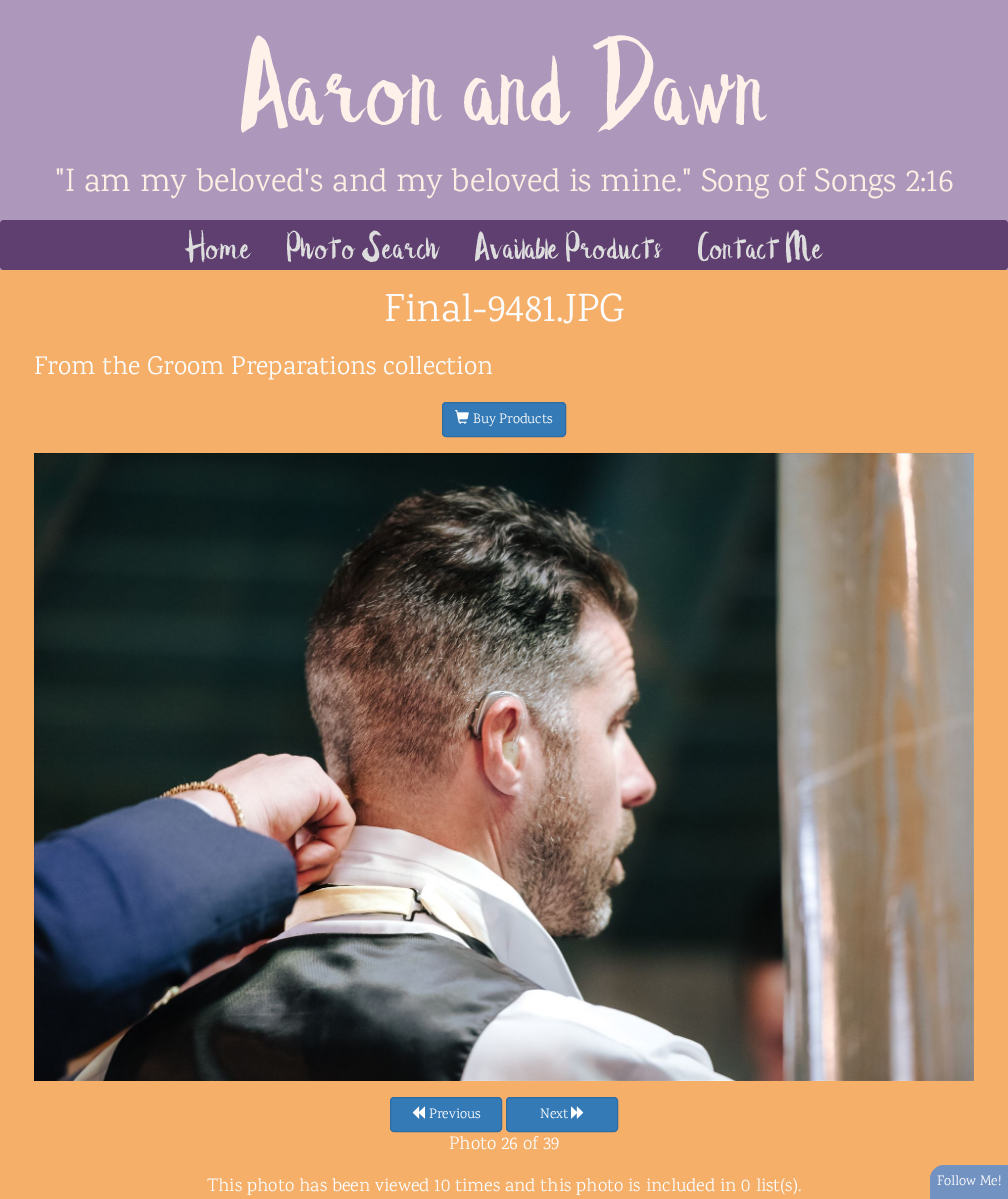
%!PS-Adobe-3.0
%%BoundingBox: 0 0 1008 1199
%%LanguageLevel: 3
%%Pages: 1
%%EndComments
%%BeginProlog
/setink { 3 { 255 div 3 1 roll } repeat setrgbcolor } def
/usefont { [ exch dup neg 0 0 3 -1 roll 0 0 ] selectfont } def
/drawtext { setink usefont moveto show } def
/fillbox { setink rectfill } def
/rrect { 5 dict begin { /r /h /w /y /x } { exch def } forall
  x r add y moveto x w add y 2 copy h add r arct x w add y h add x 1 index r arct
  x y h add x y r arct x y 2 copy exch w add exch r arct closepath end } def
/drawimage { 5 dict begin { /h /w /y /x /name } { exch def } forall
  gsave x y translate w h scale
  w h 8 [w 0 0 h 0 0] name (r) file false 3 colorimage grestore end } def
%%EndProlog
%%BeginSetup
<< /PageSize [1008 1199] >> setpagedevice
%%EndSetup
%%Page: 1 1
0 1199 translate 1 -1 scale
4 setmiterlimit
0 0 1008 1199 245 175 104 fillbox
0 0 1008 270 173 151 187 fillbox
(Aaron and Dawn) 241 125 /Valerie-Regular 112.5 253 241 233 drawtext
("I am my beloved's and my beloved is mine." Song of Songs 2:16) 55 191 /Karma-Regular 33 253 238 227 drawtext
94 63 111 setink
0 220 1008 50 4 rrect fill
(Home) 185 259 /Valerie-Regular 34.75 221 221 221 drawtext
(Photo Search) 287 259 /Valerie-Regular 34.75 221 221 221 drawtext
(Available Products) 475 259 /Valerie-Regular 34.75 221 221 221 drawtext
(Contact Me) 698 259 /Valerie-Regular 34.75 221 221 221 drawtext
(Final-9481.JPG) 384 321 /Karma-Regular 40 251 251 251 drawtext
(From the Groom Preparations collection) 34 374 /Karma-Regular 26 251 251 251 drawtext
51 122 183 setink
442.5 402.5 123 34 3.5 rrect gsave fill grestore
46 109 164 setink
stroke
(assets/img1.rgb) 455 410 14 14 drawimage
(Buy Products) 473 423 /Karma-Regular 14 251 251 251 drawtext
(assets/img2.rgb) 34 453 940 628 drawimage
51 122 183 setink
390.5 1097.5 111 34 3.5 rrect gsave fill grestore
46 109 164 setink
stroke
(assets/img3.rgb) 412 1106 13 13 drawimage
(Previous) 429 1118 /Karma-Regular 14 251 251 251 drawtext
51 122 183 setink
506.5 1097.5 111 34 3.5 rrect gsave fill grestore
46 109 164 setink
stroke
(Next) 540 1118 /Karma-Regular 14 251 251 251 drawtext
(assets/img4.rgb) 571 1106 13 13 drawimage
(Photo 26 of 39) 449 1149 /Karma-Regular 18.4 251 251 251 drawtext
(This photo has been viewed 10 times and this photo is included in 0 list\(s\).) 207 1191 /Karma-Regular 18.4 251 251 251 drawtext
114 146 194 setink
944 1165 moveto 1008 1165 lineto 1008 1199 lineto 930 1199 lineto 930 1179 lineto 930 1171.5 936.5 1165 944 1165 curveto closepath fill
(Follow Me!) 937 1185 /Karma-Regular 14 251 251 251 drawtext
showpage
%%EOF
